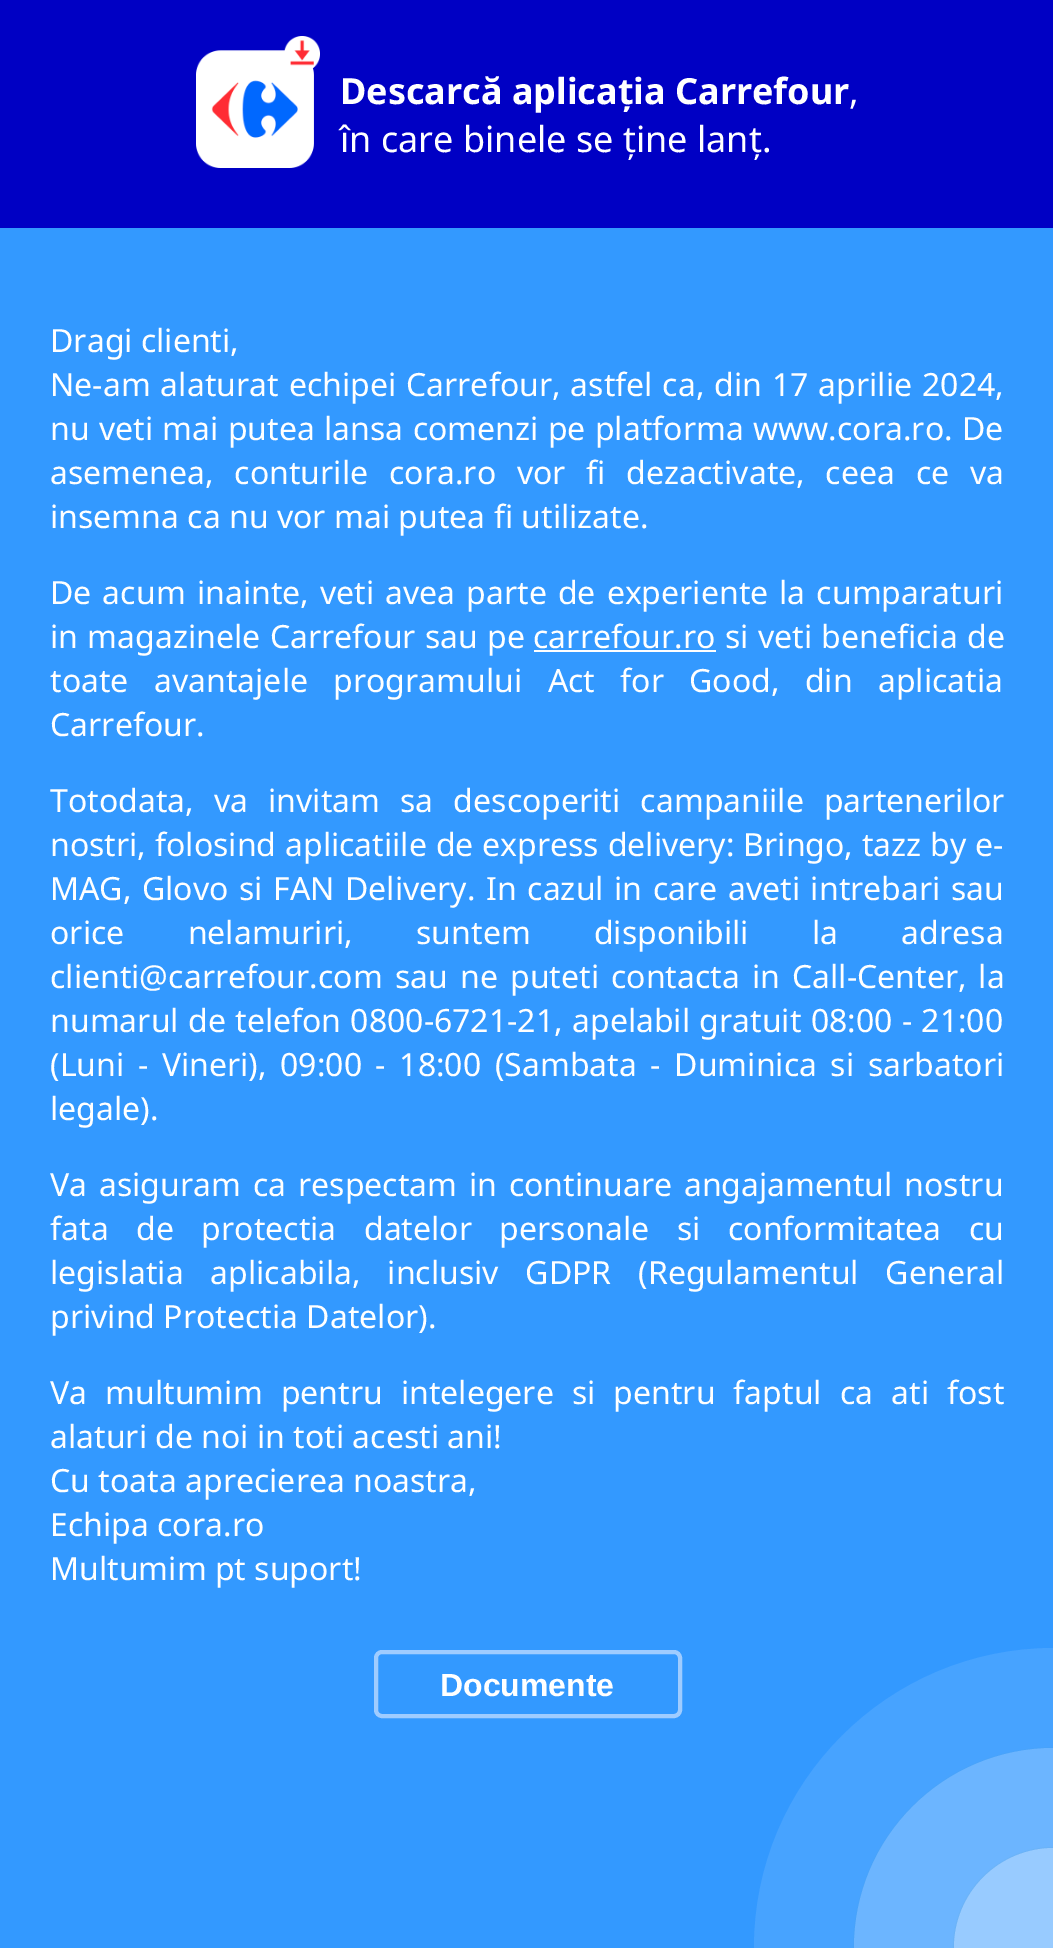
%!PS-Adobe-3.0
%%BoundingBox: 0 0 1053 1948
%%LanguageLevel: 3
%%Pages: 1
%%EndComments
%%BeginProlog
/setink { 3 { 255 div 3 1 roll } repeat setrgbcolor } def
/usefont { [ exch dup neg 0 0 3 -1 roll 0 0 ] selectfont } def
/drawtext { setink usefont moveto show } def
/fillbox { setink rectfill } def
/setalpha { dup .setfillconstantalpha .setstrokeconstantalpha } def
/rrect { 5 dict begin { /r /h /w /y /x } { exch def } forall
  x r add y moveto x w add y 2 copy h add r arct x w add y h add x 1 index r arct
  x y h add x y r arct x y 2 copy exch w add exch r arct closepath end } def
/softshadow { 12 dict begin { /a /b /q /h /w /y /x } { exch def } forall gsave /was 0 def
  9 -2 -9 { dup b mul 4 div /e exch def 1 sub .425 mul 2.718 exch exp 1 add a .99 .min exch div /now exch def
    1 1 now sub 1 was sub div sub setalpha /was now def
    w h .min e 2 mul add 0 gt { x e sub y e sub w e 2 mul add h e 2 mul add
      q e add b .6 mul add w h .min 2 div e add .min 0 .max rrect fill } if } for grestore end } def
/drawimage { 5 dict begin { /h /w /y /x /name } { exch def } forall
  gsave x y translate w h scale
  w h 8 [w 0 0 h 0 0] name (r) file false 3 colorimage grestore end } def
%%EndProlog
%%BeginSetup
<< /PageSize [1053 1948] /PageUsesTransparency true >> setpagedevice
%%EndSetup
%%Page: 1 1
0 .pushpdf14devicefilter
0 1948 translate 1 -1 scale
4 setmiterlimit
0 0 1053 1948 51 153 255 fillbox
0 0 1053 228 0 0 196 fillbox
(assets/img1.rgb) 196 36 124 132 drawimage
(Descarcă aplicația Carrefour) 340 104 /NotoSans-Bold 36 255 255 255 drawtext
(,) 849 104 /NotoSans-Regular 36 255 255 255 drawtext
(în care binele se ține lanț.) 340 152 /NotoSans-Regular 36 255 255 255 drawtext
(Dragi clienti,) 50 352 /NotoSans-Regular 32 255 255 255 drawtext
50 396 moveto 1.6 0 32 (Ne-am alaturat echipei Carrefour, astfel ca, din 17 aprilie 2024,) widthshow
50 440 moveto 1 0 32 (nu veti mai putea lansa comenzi pe platforma www.cora.ro. De) widthshow
50 484 moveto 12.5 0 32 (asemenea, conturile cora.ro vor fi dezactivate, ceea ce va) widthshow
(insemna ca nu vor mai putea fi utilizate.) 50 528 /NotoSans-Regular 32 255 255 255 drawtext
50 604 moveto 2.75 0 32 (De acum inainte, veti avea parte de experiente la cumparaturi) widthshow
50 648 moveto 1 0 32 (in magazinele Carrefour sau pe) widthshow
(carrefour.ro) 533 648 /NotoSans-Regular 32 255 255 255 drawtext
534 650 182 2 255 255 255 fillbox
725 648 moveto 1 0 32 (si veti beneficia de) widthshow
50 692 moveto 17 0 32 (toate avantajele programului Act for Good, din aplicatia) widthshow
(Carrefour.) 50 736 /NotoSans-Regular 32 255 255 255 drawtext
50 812 moveto 11.75 0 32 (Totodata, va invitam sa descoperiti campaniile partenerilor) widthshow
50 856 moveto 0.6 0 32 (nostri, folosind aplicatiile de express delivery: Bringo, tazz by e-) widthshow
50 900 moveto 2.25 0 32 (MAG, Glovo si FAN Delivery.) widthshow
486 900 moveto 2.25 0 32 (In cazul in care aveti intrebari sau) widthshow
50 944 moveto 55 0 32 (orice nelamuriri, suntem disponibili la adresa) widthshow
(clienti@carrefour.com) 50 988 /NotoSans-Regular 32 255 255 255 drawtext
395 988 moveto 3.75 0 32 (sau ne puteti contacta in Call-Center, la) widthshow
50 1032 moveto 1 0 32 (numarul de telefon 0800-6721-21, apelabil gratuit 08:00 - 21:00) widthshow
50 1076 moveto 5.25 0 32 (\(Luni - Vineri\), 09:00 - 18:00 \(Sambata - Duminica si sarbatori) widthshow
(legale\).) 50 1120 /NotoSans-Regular 32 255 255 255 drawtext
50 1196 moveto 3.5 0 32 (Va asiguram ca respectam in continuare angajamentul nostru) widthshow
50 1240 moveto 19.25 0 32 (fata de protectia datelor personale si conformitatea cu) widthshow
50 1284 moveto 18.5 0 32 (legislatia aplicabila, inclusiv GDPR \(Regulamentul General) widthshow
(privind Protectia Datelor\).) 50 1328 /NotoSans-Regular 32 255 255 255 drawtext
50 1404 moveto 9.75 0 32 (Va multumim pentru intelegere si pentru faptul ca ati fost) widthshow
(alaturi de noi in toti acesti ani!) 50 1448 /NotoSans-Regular 32 255 255 255 drawtext
(Cu toata aprecierea noastra,) 50 1492 /NotoSans-Regular 32 255 255 255 drawtext
(Echipa cora.ro) 50 1536 /NotoSans-Regular 32 255 255 255 drawtext
(Multumim pt suport!) 50 1580 /NotoSans-Regular 32 255 255 255 drawtext
159 204 255 setink
4 setlinewidth
376 1652 304 64 6 rrect stroke
(Documente) 440 1696 /LiberationSans-Bold 32 255 255 255 drawtext
71 163 255 setink
754 1648 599 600 300 rrect fill
73 159 241 setink
854 1748 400 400 200 1 1 softshadow
108 181 255 setink
854 1748 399 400 200 rrect fill
100 170 234 setink
954 1848 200 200 100 1 1 softshadow
152 203 255 setink
954 1848 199 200 100 rrect fill
.poppdf14devicefilter showpage
%%EOF
